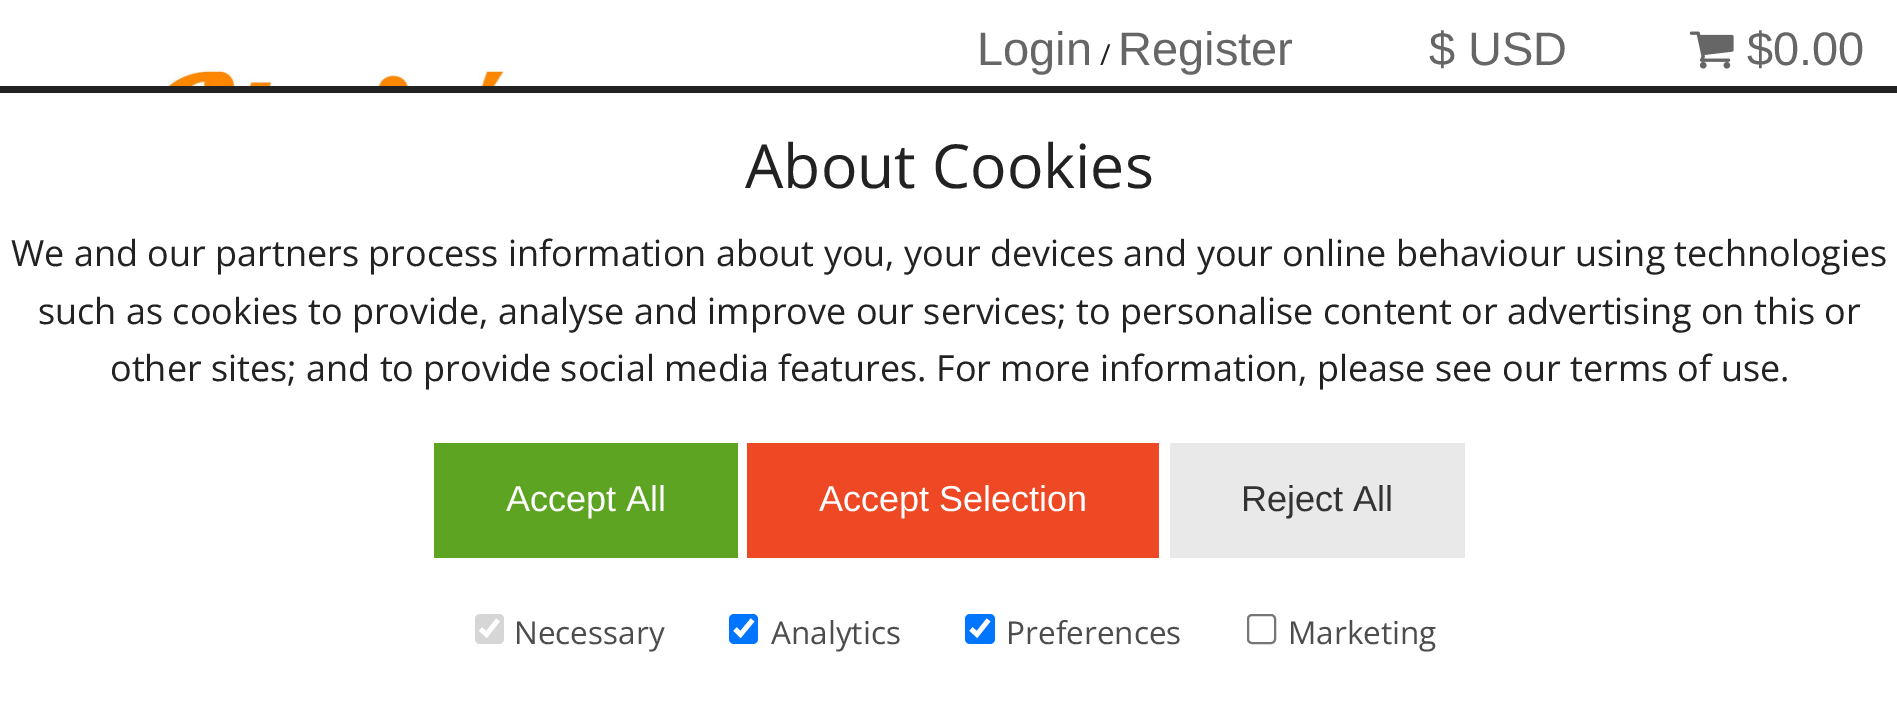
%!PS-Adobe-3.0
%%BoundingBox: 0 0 1897 724
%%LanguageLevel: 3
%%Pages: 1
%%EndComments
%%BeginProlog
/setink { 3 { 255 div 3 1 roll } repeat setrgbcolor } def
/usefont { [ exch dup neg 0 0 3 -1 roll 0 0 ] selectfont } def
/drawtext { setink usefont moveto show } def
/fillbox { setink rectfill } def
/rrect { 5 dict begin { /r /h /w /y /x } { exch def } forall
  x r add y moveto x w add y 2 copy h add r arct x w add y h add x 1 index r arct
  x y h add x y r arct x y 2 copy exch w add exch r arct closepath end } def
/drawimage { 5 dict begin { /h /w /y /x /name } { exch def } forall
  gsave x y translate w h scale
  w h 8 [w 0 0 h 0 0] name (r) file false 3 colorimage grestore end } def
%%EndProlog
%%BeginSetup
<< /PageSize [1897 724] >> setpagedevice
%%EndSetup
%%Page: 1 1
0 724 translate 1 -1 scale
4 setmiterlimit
0 0 1897 724 255 255 255 fillbox
(Login) 977 65 /LiberationSans-Regular 47 102 102 102 drawtext
(/) 1100 65 /OpenSans-Regular 29 34 34 34 drawtext
(Register) 1118 65 /LiberationSans-Regular 47 102 102 102 drawtext
($ USD) 1429 65 /LiberationSans-Regular 47 102 102 102 drawtext
(assets/img1.rgb) 1689 31 45 38 drawimage
($0.00) 1747 65 /LiberationSans-Regular 47 102 102 102 drawtext
(assets/img2.rgb) 47 68 543 18 drawimage
0 86 1897 7 34 34 34 fillbox
(About Cookies) 745 188 /OpenSans-Regular 60.75 34 34 34 drawtext
(We and our partners process information about you, your devices and your online behaviour using technologies) 11 266 /OpenSans-Regular 36 34 34 34 drawtext
(such as cookies to provide, analyse and improve our services; to personalise content or advertising on this or) 38 324 /OpenSans-Regular 36 34 34 34 drawtext
(other sites; and to provide social media features. For more information, please see our terms of use.) 110 381 /OpenSans-Regular 36 34 34 34 drawtext
434 443 304 115 93 164 35 fillbox
(Accept All) 506 511 /LiberationSans-Regular 36 255 255 255 drawtext
747 443 412 115 238 72 36 fillbox
(Accept Selection) 819 511 /LiberationSans-Regular 36 255 255 255 drawtext
1170 443 295 115 233 233 233 fillbox
(Reject All) 1241 511 /LiberationSans-Regular 36 51 51 51 drawtext
214 214 214 setink
475 614 29 30 5 rrect fill
255 255 255 setink
4.7 setlinewidth
480.5 629 moveto 486.5 634.5 lineto 498 620 lineto stroke
(Necessary) 514 644 /OpenSans-Regular 31.5 77 77 77 drawtext
0 117 255 setink
729 614 29 30 5 rrect fill
255 255 255 setink
735 629 moveto 740.5 634.5 lineto 752.5 620 lineto stroke
(Analytics) 771 644 /OpenSans-Regular 31.5 77 77 77 drawtext
0 117 255 setink
965 614 30 30 5 rrect fill
255 255 255 setink
971 629 moveto 977 634.5 lineto 988.5 620 lineto stroke
(Preferences) 1006 644 /OpenSans-Regular 31.5 77 77 77 drawtext
118 118 118 setink
2 setlinewidth
1248 615 27 28 4 rrect stroke
(Marketing) 1288 644 /OpenSans-Regular 31.5 77 77 77 drawtext
showpage
%%EOF
